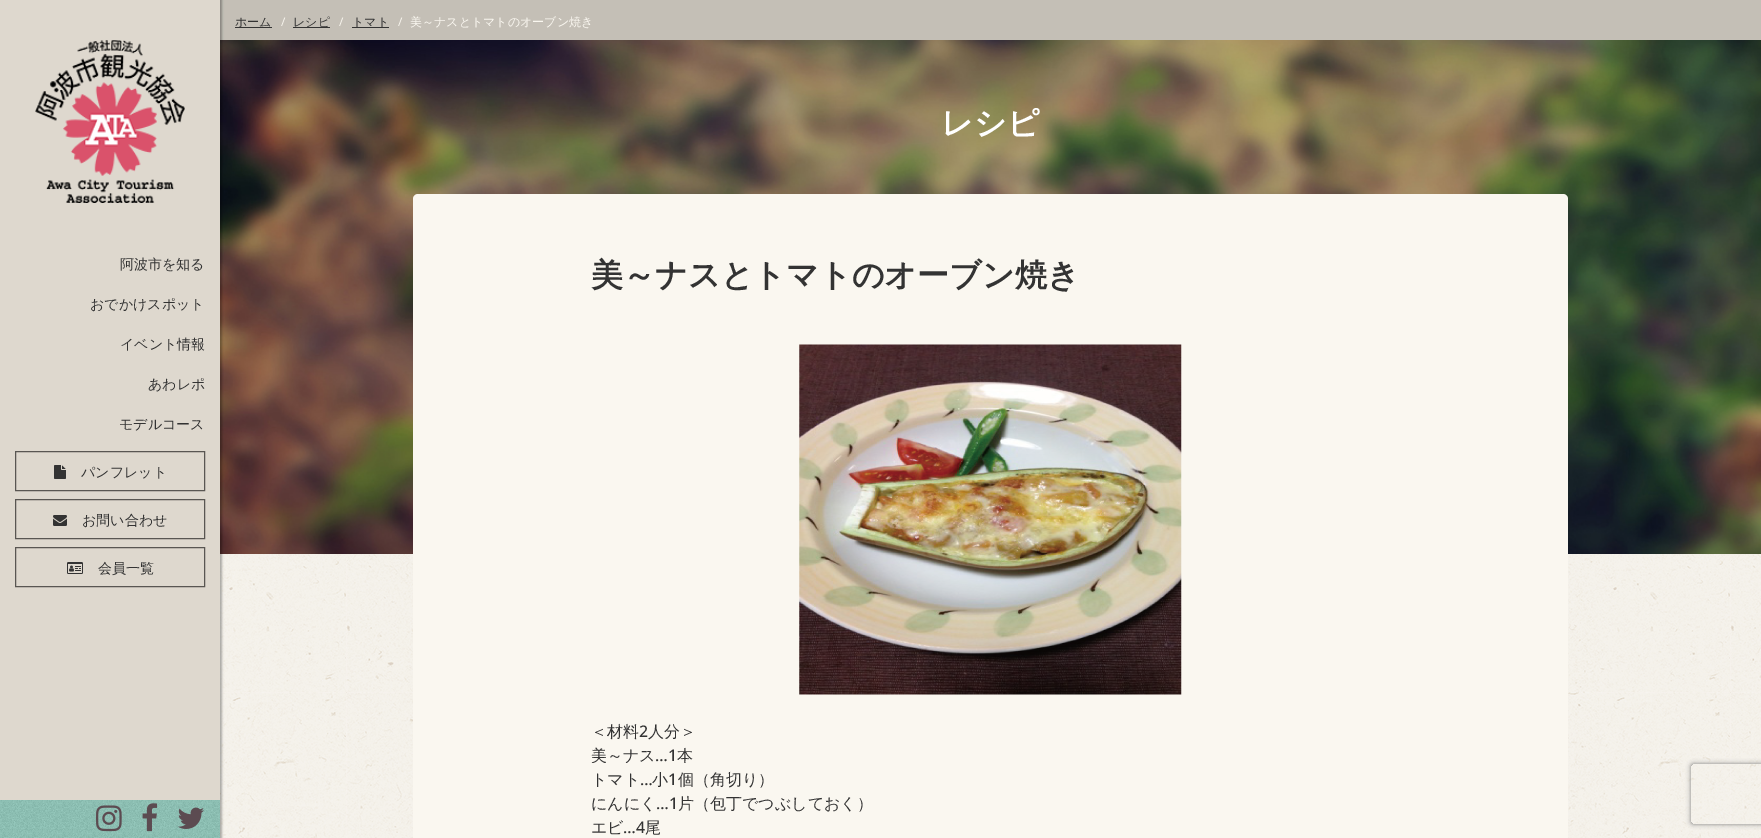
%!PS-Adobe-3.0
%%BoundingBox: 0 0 1761 838
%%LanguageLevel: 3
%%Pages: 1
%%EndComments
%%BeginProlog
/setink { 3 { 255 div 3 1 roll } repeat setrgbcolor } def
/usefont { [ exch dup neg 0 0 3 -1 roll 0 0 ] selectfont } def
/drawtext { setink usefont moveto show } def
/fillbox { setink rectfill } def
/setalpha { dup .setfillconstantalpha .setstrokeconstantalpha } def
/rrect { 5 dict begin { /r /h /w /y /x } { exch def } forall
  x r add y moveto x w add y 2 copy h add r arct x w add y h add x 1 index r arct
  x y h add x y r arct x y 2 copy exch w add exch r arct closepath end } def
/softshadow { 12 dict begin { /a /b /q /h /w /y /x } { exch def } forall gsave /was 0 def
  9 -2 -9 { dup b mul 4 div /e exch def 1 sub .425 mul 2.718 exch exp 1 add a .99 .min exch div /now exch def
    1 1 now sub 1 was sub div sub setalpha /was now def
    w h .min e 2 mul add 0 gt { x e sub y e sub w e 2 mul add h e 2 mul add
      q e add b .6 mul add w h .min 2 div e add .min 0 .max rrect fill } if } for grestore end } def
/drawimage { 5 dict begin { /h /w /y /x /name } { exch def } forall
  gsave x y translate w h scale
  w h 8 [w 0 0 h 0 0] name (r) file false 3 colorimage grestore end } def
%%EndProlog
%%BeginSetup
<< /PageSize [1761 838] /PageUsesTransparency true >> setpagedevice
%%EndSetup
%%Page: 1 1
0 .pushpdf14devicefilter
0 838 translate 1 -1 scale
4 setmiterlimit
0 0 1761 838 255 255 255 fillbox
(assets/img1.rgb) 220 554 1541 284 drawimage
220 0 1541 40 196 191 182 fillbox
(assets/img10.rgb) 220 40 1541 514 drawimage
0 0 0 setink
-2 -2 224 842 0 1 0.3 softshadow
0 0 220 800 222 216 206 fillbox
(assets/img2.rgb) 35 40 150 163 drawimage
(阿波市を知る) 120 269 /WenQuanYiZenHei-Medium 14 51 51 51 drawtext
(おでかけスポット) 90 309 /WenQuanYiZenHei-Medium 14 51 51 51 drawtext
(イベント情報) 120 349 /WenQuanYiZenHei-Medium 14 51 51 51 drawtext
(あわレポ) 148 389 /WenQuanYiZenHei-Medium 14 51 51 51 drawtext
(モデルコース) 119 429 /WenQuanYiZenHei-Medium 14 51 51 51 drawtext
89 86 82 setink
15.5 451.5 189 39 rectstroke
(assets/img3.rgb) 54 465 12 14 drawimage
(パンフレット) 81 477 /WenQuanYiZenHei-Medium 14 51 51 51 drawtext
89 86 82 setink
15.5 499.5 189 39 rectstroke
(assets/img4.rgb) 53 515 14 11 drawimage
(お問い合わせ) 82 525 /WenQuanYiZenHei-Medium 14 51 51 51 drawtext
89 86 82 setink
15.5 547.5 189 39 rectstroke
(assets/img5.rgb) 67 562 16 12 drawimage
(会員一覧) 98 573 /WenQuanYiZenHei-Medium 14 51 51 51 drawtext
(assets/img6.rgb) 0 800 220 38 drawimage
(assets/img7.rgb) 96 805 26 27 drawimage
(assets/img8.rgb) 142 803 16 29 drawimage
(assets/img9.rgb) 178 807 26 22 drawimage
235 27 37 1 51 51 51 fillbox
(ホーム) 235 26 /WenQuanYiZenHei-Medium 12 51 51 51 drawtext
(/) 281 26 /OpenSans-Regular 12 250 247 240 drawtext
293 27 37 1 51 51 51 fillbox
(レシピ) 293 26 /WenQuanYiZenHei-Medium 12 51 51 51 drawtext
(/) 339 26 /OpenSans-Regular 12 250 247 240 drawtext
352 27 37 1 51 51 51 fillbox
(トマト) 352 26 /WenQuanYiZenHei-Medium 12 51 51 51 drawtext
(/) 398 26 /OpenSans-Regular 12 250 247 240 drawtext
(美～ナスとトマトのオーブン焼き) 410 26 /WenQuanYiZenHei-Medium 12 250 247 240 drawtext
(レシピ) 941 134 /WenQuanYiZenHei-Bold 32 255 255 255 drawtext
250 247 240 setink
413 194 1155 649 5 rrect fill
(美～ナスとトマトのオーブン焼き) 591 286 /WenQuanYiZenHei-Bold 32 51 51 51 drawtext
(assets/img11.rgb) 799 344 383 351 drawimage
(＜材料) 591 737 /WenQuanYiZenHei-Medium 16 51 51 51 drawtext
(2) 639 737 /OpenSans-Medium 16 51 51 51 drawtext
(人分＞) 648 737 /WenQuanYiZenHei-Medium 16 51 51 51 drawtext
(美～ナス) 591 761 /WenQuanYiZenHei-Medium 16 51 51 51 drawtext
(…1) 655 761 /OpenSans-Medium 16 51 51 51 drawtext
(本) 677 761 /WenQuanYiZenHei-Medium 16 51 51 51 drawtext
(トマト) 591 785 /WenQuanYiZenHei-Medium 16 51 51 51 drawtext
(…) 640 785 /OpenSans-Medium 16 51 51 51 drawtext
(小) 652 785 /WenQuanYiZenHei-Medium 16 51 51 51 drawtext
(1) 668 785 /OpenSans-Medium 16 51 51 51 drawtext
(個（角切り）) 678 785 /WenQuanYiZenHei-Medium 16 51 51 51 drawtext
(にんにく) 591 809 /WenQuanYiZenHei-Medium 16 51 51 51 drawtext
(…1) 656 809 /OpenSans-Medium 16 51 51 51 drawtext
(片（包丁でつぶしておく）) 678 809 /WenQuanYiZenHei-Medium 16 51 51 51 drawtext
(エビ) 591 833 /WenQuanYiZenHei-Medium 16 51 51 51 drawtext
(…4) 623 833 /OpenSans-Medium 16 51 51 51 drawtext
(尾) 645 833 /WenQuanYiZenHei-Medium 16 51 51 51 drawtext
gsave
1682 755 moveto 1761 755 lineto 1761 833 lineto 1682 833 lineto closepath 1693 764 moveto 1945 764 lineto 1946 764 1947 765 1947 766 curveto 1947 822 lineto 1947 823 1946 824 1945 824 curveto 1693 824 lineto 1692 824 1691 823 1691 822 curveto 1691 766 lineto 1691 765 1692 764 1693 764 curveto closepath eoclip newpath
128 128 128 setink
1691 764 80 60 2 2.5 1 softshadow
grestore
.poppdf14devicefilter showpage
%%EOF
